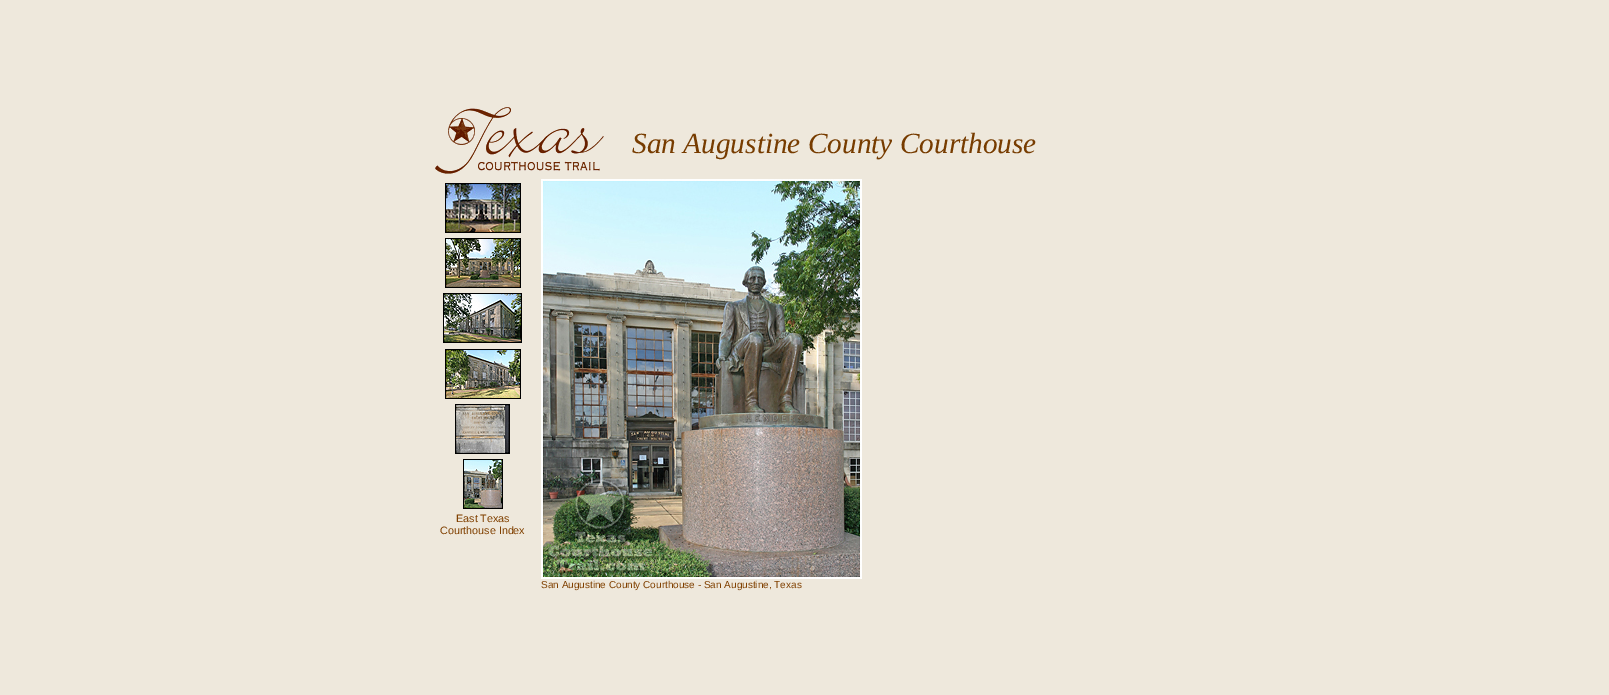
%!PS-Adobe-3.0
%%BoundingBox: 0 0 1609 695
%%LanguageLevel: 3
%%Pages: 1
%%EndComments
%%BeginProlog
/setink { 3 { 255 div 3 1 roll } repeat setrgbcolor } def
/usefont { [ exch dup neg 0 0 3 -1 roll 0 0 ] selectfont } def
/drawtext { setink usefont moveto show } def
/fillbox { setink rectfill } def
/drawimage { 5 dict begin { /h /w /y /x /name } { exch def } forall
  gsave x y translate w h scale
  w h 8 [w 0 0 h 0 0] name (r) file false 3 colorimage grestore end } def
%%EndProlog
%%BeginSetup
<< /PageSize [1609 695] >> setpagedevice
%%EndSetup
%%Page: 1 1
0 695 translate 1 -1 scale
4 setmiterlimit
0 0 1609 695 238 232 220 fillbox
(assets/img1.rgb) 435 107 169 67 drawimage
(San Augustine County Courthouse) 632 153 /LiberationSerif-Italic 29.3 119 60 0 drawtext
(assets/img2.rgb) 445 183 76 50 drawimage
(assets/img3.rgb) 445 238 76 50 drawimage
(assets/img4.rgb) 443 293 79 50 drawimage
(assets/img5.rgb) 445 349 76 50 drawimage
(assets/img6.rgb) 455 404 55 50 drawimage
(assets/img7.rgb) 463 459 40 50 drawimage
(East Texas) 456 522 /LiberationSans-Regular 10.75 128 64 0 drawtext
(Courthouse Index) 440 534 /LiberationSans-Regular 10.75 128 64 0 drawtext
(assets/img8.rgb) 541 179 321 400 drawimage
(San Augustine County Courthouse - San Augustine, Texas) 541 588 /LiberationSans-Regular 10 128 64 0 drawtext
showpage
%%EOF
